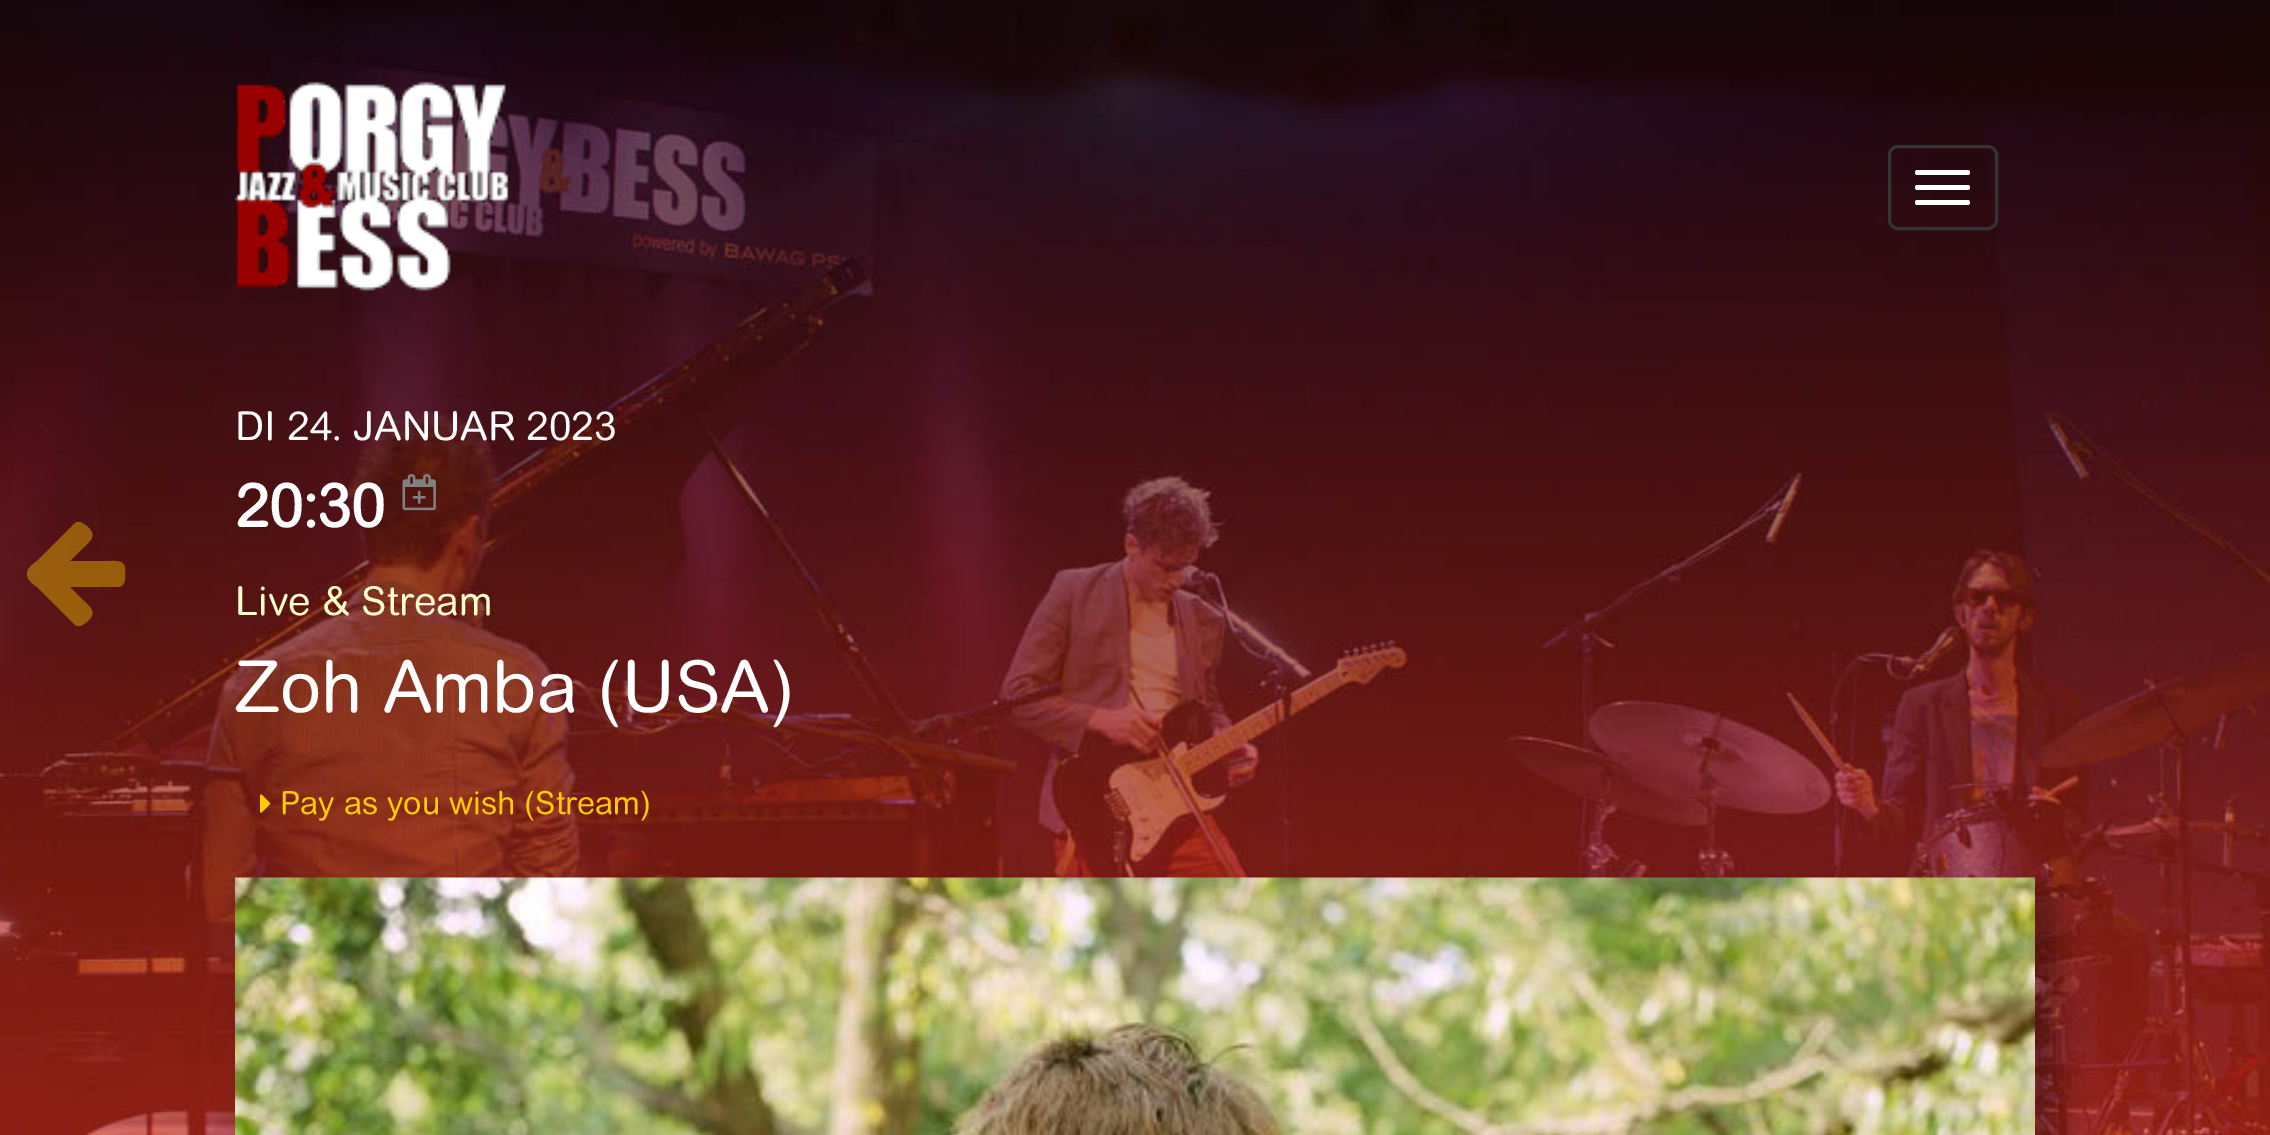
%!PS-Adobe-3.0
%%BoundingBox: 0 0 2270 1135
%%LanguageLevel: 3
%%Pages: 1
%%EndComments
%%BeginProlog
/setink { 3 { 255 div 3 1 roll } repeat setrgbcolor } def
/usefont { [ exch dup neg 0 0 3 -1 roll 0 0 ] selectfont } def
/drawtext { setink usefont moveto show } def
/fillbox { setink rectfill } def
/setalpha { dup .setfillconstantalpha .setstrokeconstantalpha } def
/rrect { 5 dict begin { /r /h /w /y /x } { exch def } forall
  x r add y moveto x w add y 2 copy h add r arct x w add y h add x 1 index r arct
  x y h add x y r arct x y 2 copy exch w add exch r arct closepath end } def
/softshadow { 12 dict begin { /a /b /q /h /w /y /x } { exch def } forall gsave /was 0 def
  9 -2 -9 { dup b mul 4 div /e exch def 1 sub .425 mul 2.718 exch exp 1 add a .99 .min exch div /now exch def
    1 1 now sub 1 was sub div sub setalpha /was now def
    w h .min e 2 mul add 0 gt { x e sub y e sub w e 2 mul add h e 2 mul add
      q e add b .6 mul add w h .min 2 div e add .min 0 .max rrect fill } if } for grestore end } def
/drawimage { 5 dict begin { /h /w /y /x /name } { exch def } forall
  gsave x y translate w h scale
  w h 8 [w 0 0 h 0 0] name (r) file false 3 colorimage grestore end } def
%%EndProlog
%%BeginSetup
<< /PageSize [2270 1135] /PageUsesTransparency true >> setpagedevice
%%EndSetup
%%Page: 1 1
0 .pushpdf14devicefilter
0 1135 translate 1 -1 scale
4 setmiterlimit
0 0 2270 1135 255 255 255 fillbox
(assets/img1.rgb) 0 0 2270 1135 drawimage
(assets/img2.rgb) 235 81 275 210 drawimage
51 51 51 setink
3 setlinewidth
1889.5 146.5 107 82 8.5 rrect stroke
255 255 255 setink
1915 170 55 5 2.5 rrect fill
1915 185 55 5 2.5 rrect fill
1915 200 55 5 2.5 rrect fill
0.4 setalpha
255 204 0 setink
125 570 moveto 125 575 127 585 119 587 curveto 70 587 lineto 83 600 lineto 91 608 97 612 88 621 curveto 84 624 80 628 75 625 curveto 37 587 lineto 33 584 27 580 27 574 curveto 27 568 33 564 37 561 curveto 75 523 lineto 80 520 84 524 88 527 curveto 97 536 91 540 83 548 curveto 70 561 lineto 110 561 lineto 117 561 125 560 125 570 curveto closepath fill
1 setalpha
(DI 24. JANUAR 2023) 235 440 /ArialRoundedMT-Regular 40 255 255 255 drawtext
(20:30) 235 527 /ArialRoundedMT-Bold 60 255 255 255 drawtext
(assets/img3.rgb) 402 474 34 37 drawimage
(Live & Stream) 235 615 /ArialRoundedMT-Regular 40 255 255 204 drawtext
(Zoh Amba \(USA\)) 235 712 /ArialRoundedMT-Regular 72 255 255 255 drawtext
(assets/img4.rgb) 260 794 11 19 drawimage
(Pay as you wish \(Stream\)) 280 814 /ArialRoundedMT-Regular 32 255 204 0 drawtext
0 0 0 setink
260 893 1800 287 0 15 0.35 softshadow
(assets/img5.rgb) 235 877 1800 258 drawimage
.poppdf14devicefilter showpage
%%EOF
